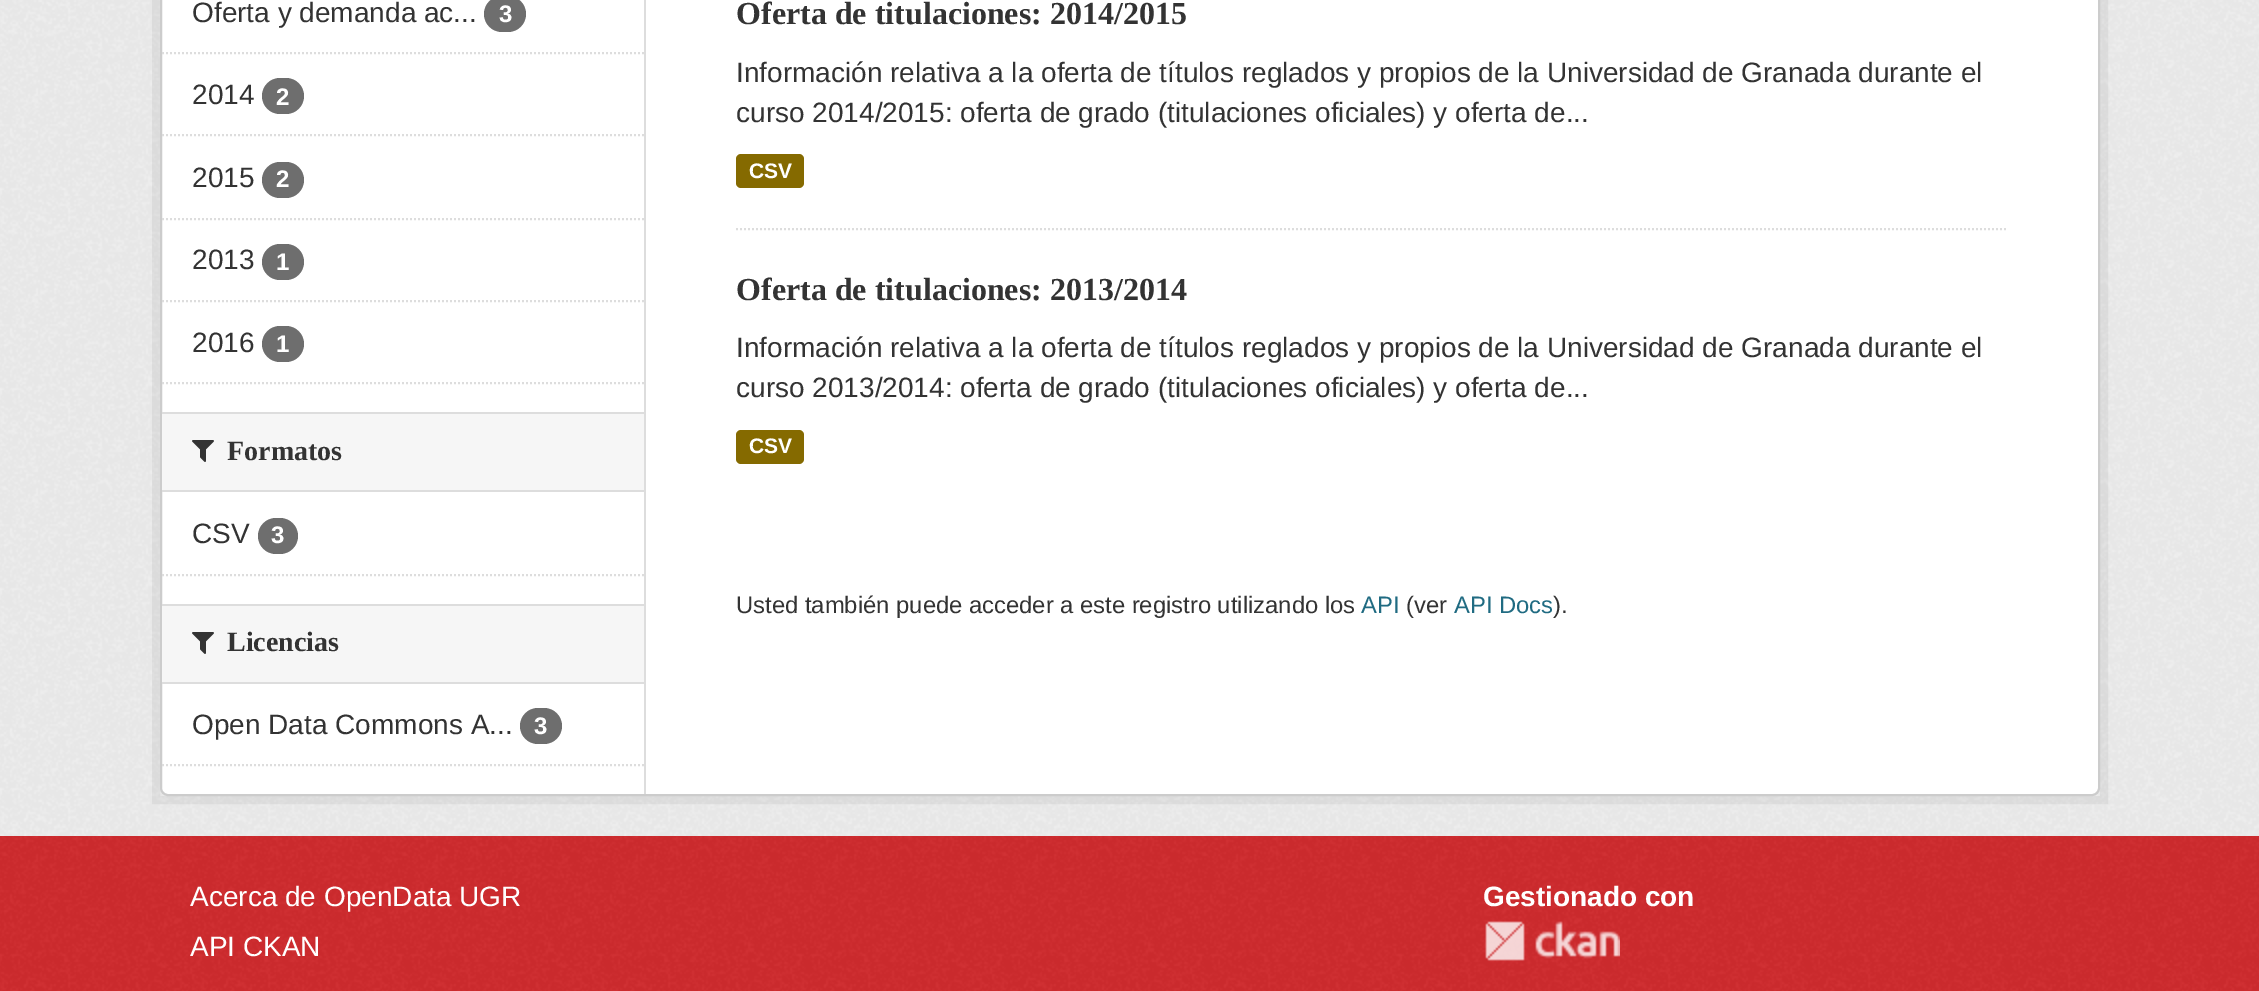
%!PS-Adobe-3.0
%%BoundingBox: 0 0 2259 991
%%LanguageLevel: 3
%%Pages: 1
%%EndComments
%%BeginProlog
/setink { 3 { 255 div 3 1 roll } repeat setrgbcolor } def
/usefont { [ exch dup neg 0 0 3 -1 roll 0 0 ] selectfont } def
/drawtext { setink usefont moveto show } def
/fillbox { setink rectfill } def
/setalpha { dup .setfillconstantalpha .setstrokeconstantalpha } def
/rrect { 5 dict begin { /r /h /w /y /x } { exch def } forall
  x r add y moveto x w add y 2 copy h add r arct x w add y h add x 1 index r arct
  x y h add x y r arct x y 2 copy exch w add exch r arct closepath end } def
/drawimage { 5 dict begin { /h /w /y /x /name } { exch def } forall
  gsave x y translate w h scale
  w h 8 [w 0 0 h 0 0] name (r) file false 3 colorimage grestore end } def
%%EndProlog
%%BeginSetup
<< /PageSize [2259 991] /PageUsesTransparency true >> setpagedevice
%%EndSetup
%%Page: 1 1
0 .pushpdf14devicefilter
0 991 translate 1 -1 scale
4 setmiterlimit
0 0 2259 991 209 43 46 fillbox
0 0 2259 836 238 238 238 fillbox
(assets/img1.rgb) 0 0 2259 836 drawimage
0.05 setalpha
0 0 0 setink
8 setlinewidth
156 -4 1948 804 rectstroke
1 setalpha
255 255 255 setink
161 -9 1938 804 7 rrect gsave fill grestore
204 204 204 setink
2 setlinewidth
stroke
221 221 221 setink
[2 2] 0 setdash
162 53 moveto 644 53 lineto stroke
(Oferta y demanda ac...) 192 22 /LiberationSans-Regular 28 51 51 51 drawtext
110 110 110 setink
484 -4 42 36 18 rrect fill
(3) 499 22 /LiberationSans-Bold 24 255 255 255 drawtext
221 221 221 setink
162 135 moveto 644 135 lineto stroke
(2014) 192 104 /LiberationSans-Regular 28 51 51 51 drawtext
110 110 110 setink
262 78 42 36 18 rrect fill
(2) 276 105 /LiberationSans-Bold 24 255 255 255 drawtext
221 221 221 setink
162 219 moveto 644 219 lineto stroke
(2015) 192 187 /LiberationSans-Regular 28 51 51 51 drawtext
110 110 110 setink
262 162 42 36 18 rrect fill
(2) 276 187 /LiberationSans-Bold 24 255 255 255 drawtext
221 221 221 setink
162 301 moveto 644 301 lineto stroke
(2013) 192 269 /LiberationSans-Regular 28 51 51 51 drawtext
110 110 110 setink
262 244 42 36 18 rrect fill
(1) 276 270 /LiberationSans-Bold 24 255 255 255 drawtext
(2016) 192 352 /LiberationSans-Regular 28 51 51 51 drawtext
110 110 110 setink
262 326 42 36 18 rrect fill
(1) 276 352 /LiberationSans-Bold 24 255 255 255 drawtext
221 221 221 setink
162 383 moveto 644 383 lineto stroke
162 414 482 76 246 246 246 fillbox
162 412 482 2 221 221 221 fillbox
162 490 482 2 221 221 221 fillbox
(assets/img2.rgb) 192 440 22 22 drawimage
(Formatos) 227 460 /LiberationSerif-Bold 28 51 51 51 drawtext
(CSV) 192 543 /LiberationSans-Regular 28 51 51 51 drawtext
110 110 110 setink
258 518 40 36 18 rrect fill
(3) 271 543 /LiberationSans-Bold 24 255 255 255 drawtext
221 221 221 setink
162 575 moveto 644 575 lineto stroke
162 606 482 76 246 246 246 fillbox
162 604 482 2 221 221 221 fillbox
162 682 482 2 221 221 221 fillbox
(assets/img2.rgb) 192 632 22 22 drawimage
(Licencias) 227 651 /LiberationSerif-Bold 28 51 51 51 drawtext
(Open Data Commons A...) 192 734 /LiberationSans-Regular 28 51 51 51 drawtext
110 110 110 setink
520 708 42 36 18 rrect fill
(3) 534 734 /LiberationSans-Bold 24 255 255 255 drawtext
221 221 221 setink
162 765 moveto 644 765 lineto stroke
644 0 2 794 221 221 221 fillbox
736 229 moveto 2008 229 lineto stroke
(Oferta de titulaciones: 2014/2015) 736 24 /LiberationSerif-Bold 32 51 51 51 drawtext
(Información relativa a la oferta de títulos reglados y propios de la Universidad de Granada durante el) 736 82 /LiberationSans-Regular 28 51 51 51 drawtext
(curso 2014/2015: oferta de grado \(titulaciones oficiales\) y oferta de...) 736 122 /LiberationSans-Regular 28 51 51 51 drawtext
133 106 0 setink
736 154 68 34 5 rrect fill
(CSV) 749 178 /LiberationSans-Bold 21 255 255 255 drawtext
(Oferta de titulaciones: 2013/2014) 736 300 /LiberationSerif-Bold 32 51 51 51 drawtext
(Información relativa a la oferta de títulos reglados y propios de la Universidad de Granada durante el) 736 357 /LiberationSans-Regular 28 51 51 51 drawtext
(curso 2013/2014: oferta de grado \(titulaciones oficiales\) y oferta de...) 736 397 /LiberationSans-Regular 28 51 51 51 drawtext
133 106 0 setink
736 430 68 34 5 rrect fill
(CSV) 749 453 /LiberationSans-Bold 21 255 255 255 drawtext
(Usted también puede acceder a este registro utilizando los) 736 613 /LiberationSans-Regular 23.8 51 51 51 drawtext
(API) 1361 613 /LiberationSans-Regular 23.8 32 107 130 drawtext
(\(ver) 1406 613 /LiberationSans-Regular 23.8 51 51 51 drawtext
(API Docs) 1454 613 /LiberationSans-Regular 23.8 32 107 130 drawtext
(\).) 1553 613 /LiberationSans-Regular 23.8 51 51 51 drawtext
(assets/img3.rgb) 0 836 2259 155 drawimage
(Acerca de OpenData UGR) 190 906 /LiberationSans-Regular 28 255 255 255 drawtext
(API CKAN) 190 956 /LiberationSans-Regular 28 255 255 255 drawtext
(Gestionado con) 1483 906 /LiberationSans-Bold 28 255 255 255 drawtext
(assets/img4.rgb) 1485 921 135 40 drawimage
.poppdf14devicefilter showpage
%%EOF
